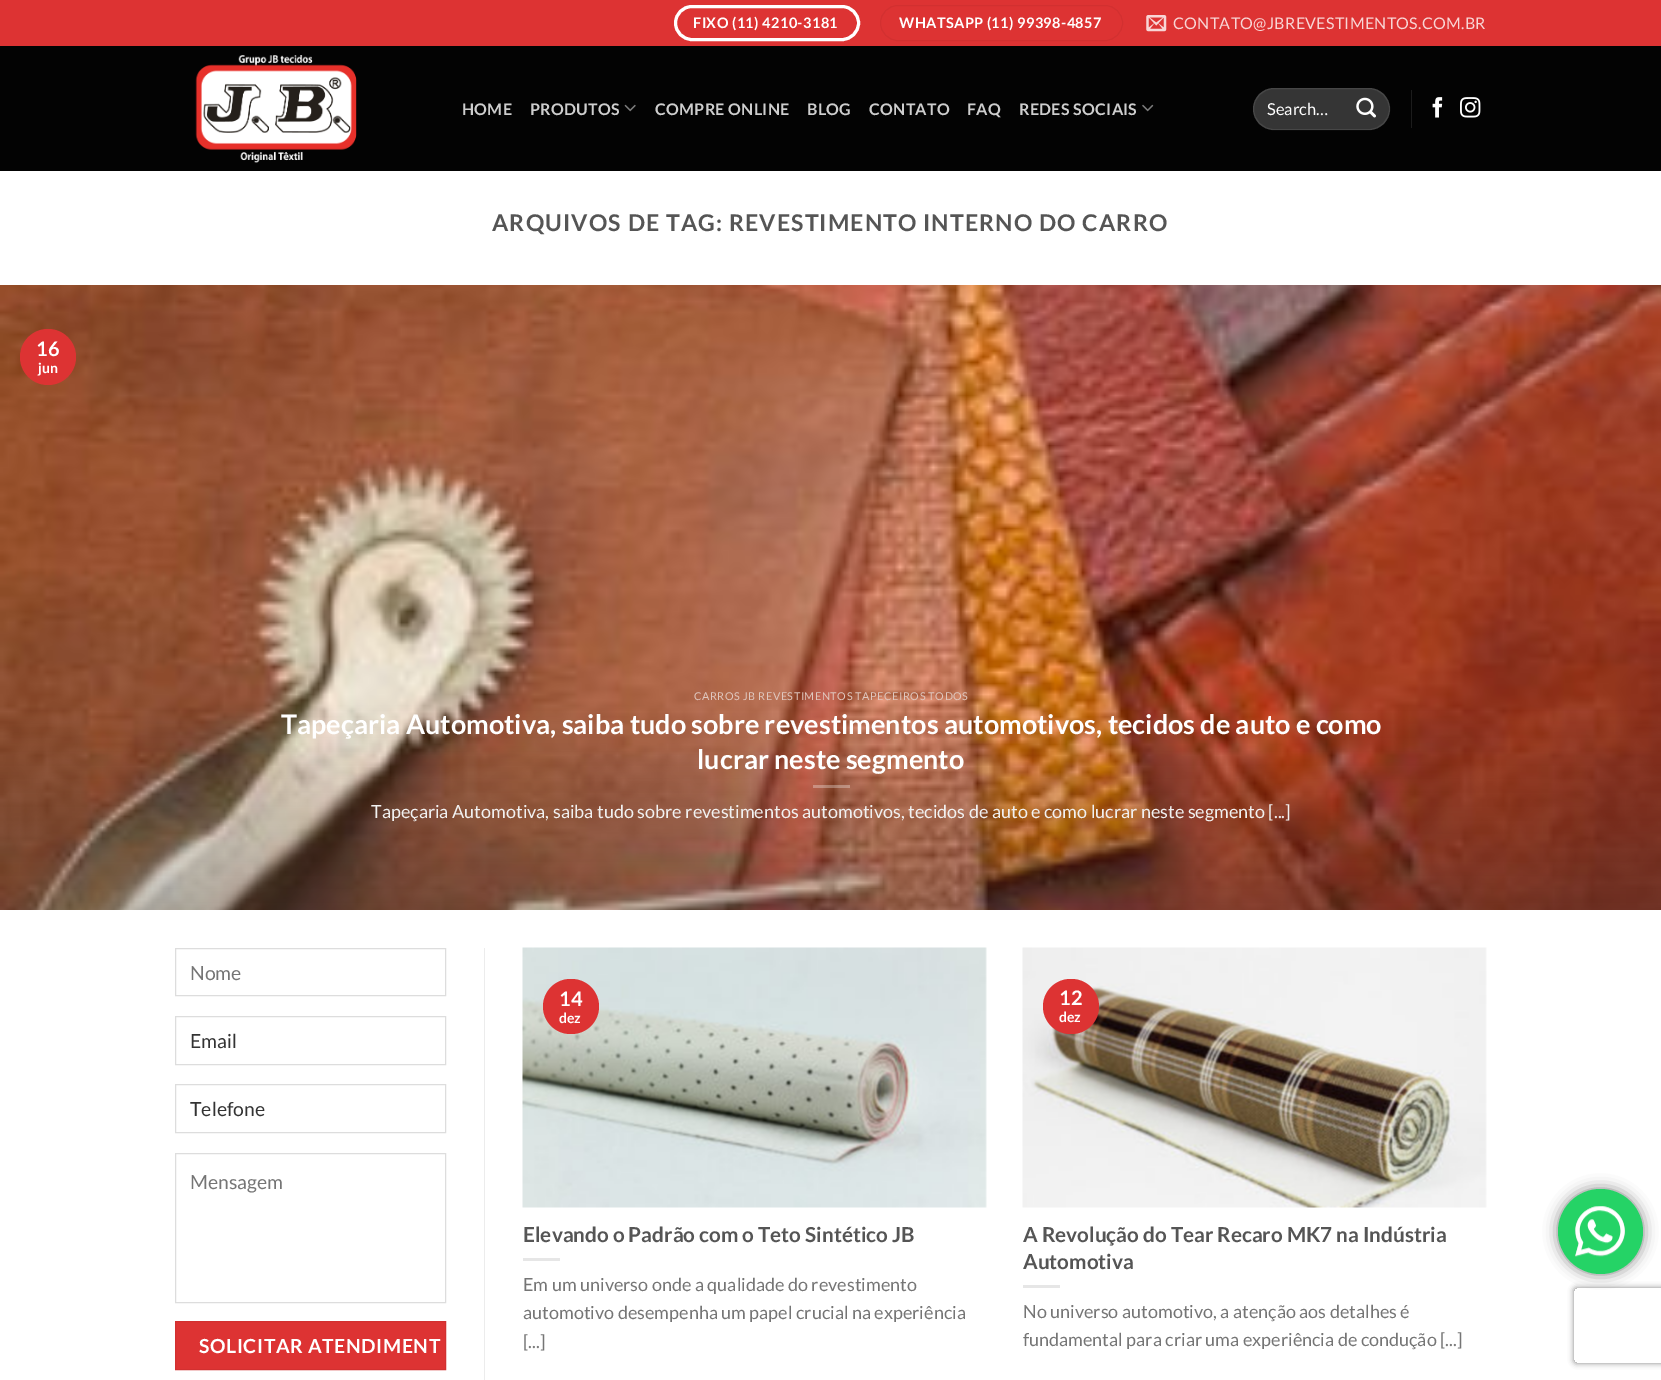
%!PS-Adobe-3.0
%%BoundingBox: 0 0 1661 1380
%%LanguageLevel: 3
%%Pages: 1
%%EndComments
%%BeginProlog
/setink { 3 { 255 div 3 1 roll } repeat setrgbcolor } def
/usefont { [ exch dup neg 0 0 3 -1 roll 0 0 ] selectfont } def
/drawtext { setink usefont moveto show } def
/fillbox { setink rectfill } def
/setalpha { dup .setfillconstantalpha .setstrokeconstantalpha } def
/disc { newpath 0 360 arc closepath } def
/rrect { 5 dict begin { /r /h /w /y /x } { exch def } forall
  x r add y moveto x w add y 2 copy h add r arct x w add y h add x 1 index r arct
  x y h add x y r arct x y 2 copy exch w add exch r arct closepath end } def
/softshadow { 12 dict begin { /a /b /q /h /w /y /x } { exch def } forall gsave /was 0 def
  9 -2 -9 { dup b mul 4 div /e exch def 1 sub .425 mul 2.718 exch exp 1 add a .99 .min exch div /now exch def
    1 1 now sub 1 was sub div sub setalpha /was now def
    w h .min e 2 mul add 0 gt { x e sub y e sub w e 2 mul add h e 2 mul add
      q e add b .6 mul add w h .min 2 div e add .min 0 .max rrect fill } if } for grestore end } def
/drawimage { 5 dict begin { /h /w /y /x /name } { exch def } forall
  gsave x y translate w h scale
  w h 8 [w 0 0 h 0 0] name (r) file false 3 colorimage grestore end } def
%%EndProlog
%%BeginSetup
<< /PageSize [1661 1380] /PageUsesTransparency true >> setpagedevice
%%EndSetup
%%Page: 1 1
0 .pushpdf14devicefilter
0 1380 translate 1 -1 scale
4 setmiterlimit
0 0 1661 1380 255 255 255 fillbox
0 0 1661 46 221 51 51 fillbox
255 255 255 setink
3 setlinewidth
675.5 6.5 183 33 16.5 rrect stroke
/Lato-Bold 14.5 usefont
693 28 moveto 0.4 0 (FIXO \(11\) 4210-3181) ashow
210 48 48 setink
1 setlinewidth
880.5 5.5 242 35 17.5 rrect stroke
255 255 255 setink
899 28 moveto 0.4 0 (WHATSAPP \(11\) 99398-4857) ashow
(assets/img1.rgb) 1146 15 21 17 drawimage
/Lato-Regular 16 usefont
248 214 214 setink
1173 29 moveto 0.3 0 (CONTATO@JBREVESTIMENTOS.COM.BR) ashow
0 46 1661 125 3 3 3 fillbox
(assets/img2.rgb) 195 55 162 108 drawimage
/Lato-Bold 16 usefont
205 205 205 setink
462 115 moveto 0.3 0 (HOME) ashow
530 115 moveto 0.3 0 (PRODUTOS) ashow
(assets/img3.rgb) 624 104 12 8 drawimage
655 115 moveto 0.3 0 (COMPRE ONLINE) ashow
807 115 moveto 0.3 0 (BLOG) ashow
869 115 moveto 0.3 0 (CONTATO) ashow
967 115 moveto 0.3 0 (FAQ) ashow
1019 115 moveto 0.3 0 (REDES SOCIAIS) ashow
(assets/img4.rgb) 1142 104 12 8 drawimage
53 53 53 setink
1253 88 137 42 21 rrect fill
0.09 setalpha
255 255 255 setink
1253.5 88.5 136 41 20.5 rrect stroke
1 setalpha
(Search…) 1267 115 /Lato-Regular 16.5 255 255 255 drawtext
(assets/img5.rgb) 1356 97 20 21 drawimage
1411 90 1 38 28 28 28 fillbox
(assets/img6.rgb) 1432 97 11 21 drawimage
(assets/img7.rgb) 1460 97 21 21 drawimage
/Lato-Bold 23 usefont
85 85 85 setink
492 231 moveto 1.15 0 (ARQUIVOS DE TAG: REVESTIMENTO INTERNO DO CARRO) ashow
(assets/img8.rgb) 0 285 1661 625 drawimage
221 51 51 setink
48 357 28 disc fill
(16) 36 356 /Lato-Bold 20 255 255 255 drawtext
(jun) 38 373 /Lato-Bold 14 255 255 255 drawtext
/Lato-Regular 10.8 usefont
223 200 192 setink
694 700 moveto 0.55 0 (CARROS JB REVESTIMENTOS TAPECEIROS TODOS) ashow
(Tapeçaria Automotiva, saiba tudo sobre revestimentos automotivos, tecidos de auto e como) 281 734 /Lato-Bold 27 255 255 255 drawtext
(lucrar neste segmento) 697 769 /Lato-Bold 27 255 255 255 drawtext
0.3 setalpha
813 785 37 3 255 255 255 fillbox
1 setalpha
(Tapeçaria Automotiva, saiba tudo sobre revestimentos automotivos, tecidos de auto e como lucrar neste segmento [...]) 371 818 /Lato-Regular 18 241 241 241 drawtext
221 221 221 setink
175.5 948.5 270 47 rectstroke
(Nome) 190 980 /Lato-Regular 19.4 117 117 117 drawtext
221 221 221 setink
175.5 1016.5 270 48 rectstroke
(Email) 190 1048 /Lato-Regular 19.4 51 51 51 drawtext
221 221 221 setink
175.5 1084.5 270 48 rectstroke
(Telefone) 190 1116 /Lato-Regular 19.4 51 51 51 drawtext
221 221 221 setink
175.5 1153.5 270 149 rectstroke
(Mensagem) 190 1189 /Lato-Regular 19.4 117 117 117 drawtext
221 51 51 setink
175.5 1321.5 moveto 445.5 1321.5 lineto 445.5 1369.5 lineto 175.5 1369.5 lineto closepath gsave fill grestore
210 48 48 setink
stroke
/Lato-Bold 19.4 usefont
255 255 255 setink
199 1353 moveto 0.6 0 (SOLICITAR ATENDIMENT) ashow
484 948 1 432 236 236 236 fillbox
(assets/img9.rgb) 522 947 465 261 drawimage
221 51 51 setink
543 979 56 55 27.5 rrect fill
(14) 559 1006 /Lato-Bold 20 255 255 255 drawtext
(dez) 559 1023 /Lato-Bold 14 255 255 255 drawtext
(Elevando o Padrão com o Teto Sintético JB) 523 1242 /Lato-Bold 20.7 85 85 85 drawtext
523 1258 37 3 230 230 230 fillbox
(Em um universo onde a qualidade do revestimento) 523 1291 /Lato-Regular 18 117 117 117 drawtext
(automotivo desempenha um papel crucial na experiência) 523 1319 /Lato-Regular 18 117 117 117 drawtext
([...]) 523 1348 /Lato-Regular 18 117 117 117 drawtext
(assets/img10.rgb) 1022 947 465 261 drawimage
221 51 51 setink
1043 979 56 55 27.5 rrect fill
(12) 1059 1005 /Lato-Bold 20 255 255 255 drawtext
(dez) 1059 1022 /Lato-Bold 14 255 255 255 drawtext
(A Revolução do Tear Recaro MK7 na Indústria) 1023 1242 /Lato-Bold 20.7 85 85 85 drawtext
(Automotiva) 1023 1269 /Lato-Bold 20.7 85 85 85 drawtext
1023 1285 37 3 230 230 230 fillbox
(No universo automotivo, a atenção aos detalhes é) 1023 1318 /Lato-Regular 18 117 117 117 drawtext
(fundamental para criar uma experiência de condução [...]) 1023 1346 /Lato-Regular 18 117 117 117 drawtext
0 0 0 setink
1558 1189 85 85 42.5 7 0.5 softshadow
37 211 102 setink
1600.5 1231.5 42.5 disc fill
(assets/img11.rgb) 1575 1206 50 51 drawimage
gsave
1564 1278 moveto 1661 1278 lineto 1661 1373 lineto 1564 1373 lineto closepath 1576.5 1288 moveto 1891.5 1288 lineto 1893 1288 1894 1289 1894 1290.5 curveto 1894 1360.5 lineto 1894 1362 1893 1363 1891.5 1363 curveto 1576.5 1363 lineto 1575 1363 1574 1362 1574 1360.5 curveto 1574 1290.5 lineto 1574 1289 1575 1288 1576.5 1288 curveto closepath eoclip newpath
128 128 128 setink
1574 1288 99 75 2.5 3 1 softshadow
grestore
.poppdf14devicefilter showpage
%%EOF
